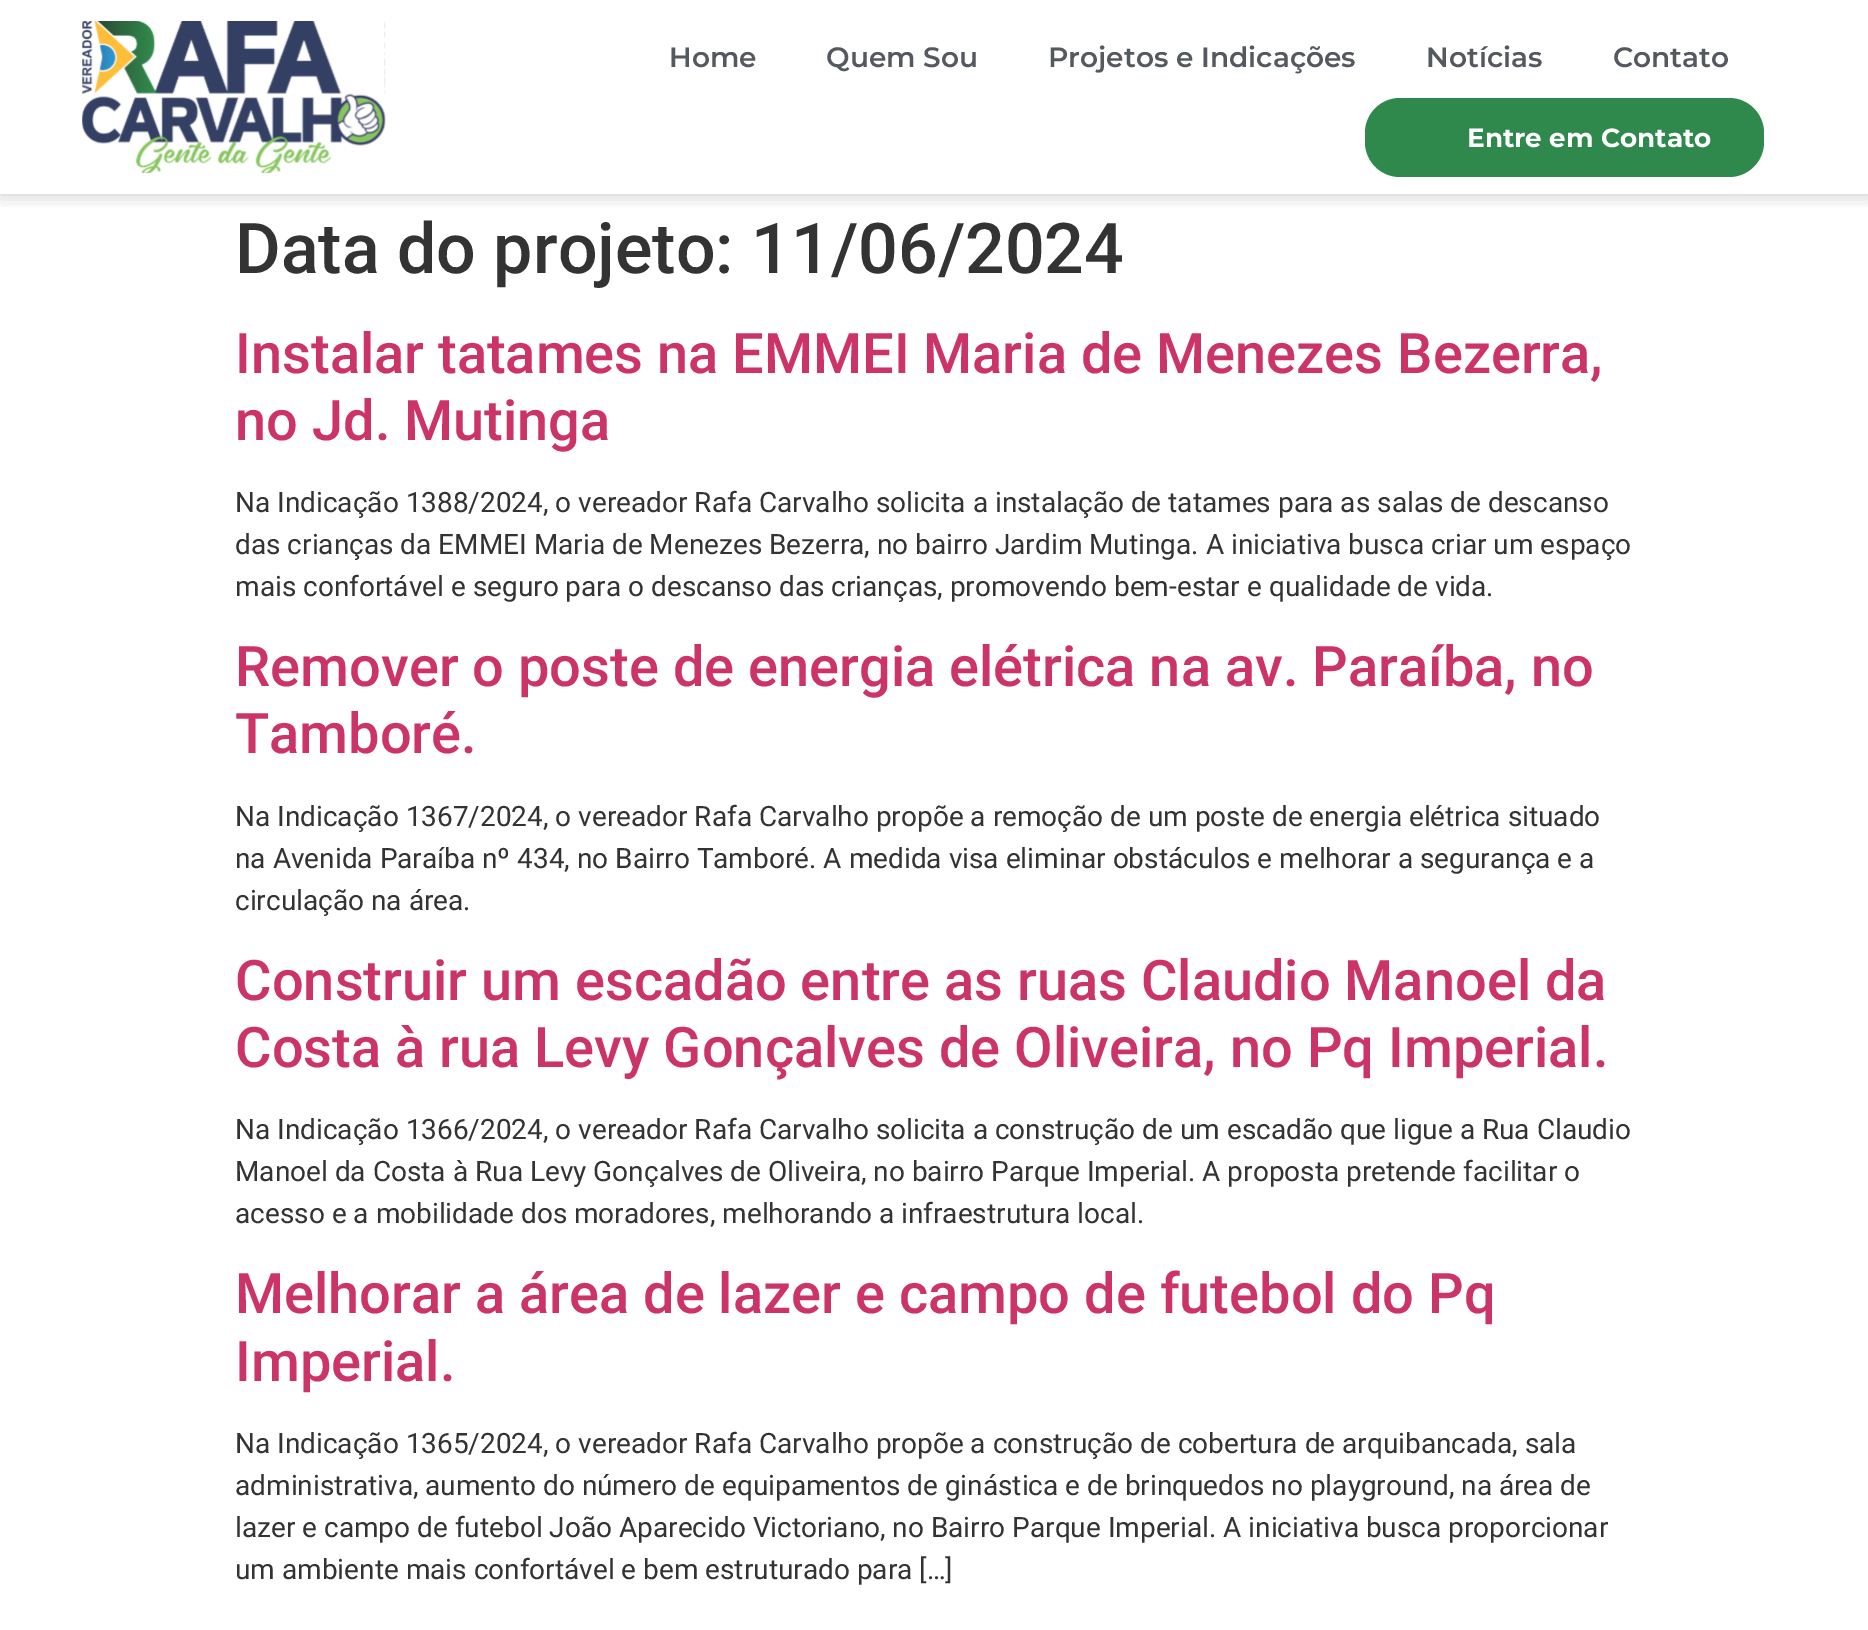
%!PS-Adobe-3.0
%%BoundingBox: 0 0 1868 1630
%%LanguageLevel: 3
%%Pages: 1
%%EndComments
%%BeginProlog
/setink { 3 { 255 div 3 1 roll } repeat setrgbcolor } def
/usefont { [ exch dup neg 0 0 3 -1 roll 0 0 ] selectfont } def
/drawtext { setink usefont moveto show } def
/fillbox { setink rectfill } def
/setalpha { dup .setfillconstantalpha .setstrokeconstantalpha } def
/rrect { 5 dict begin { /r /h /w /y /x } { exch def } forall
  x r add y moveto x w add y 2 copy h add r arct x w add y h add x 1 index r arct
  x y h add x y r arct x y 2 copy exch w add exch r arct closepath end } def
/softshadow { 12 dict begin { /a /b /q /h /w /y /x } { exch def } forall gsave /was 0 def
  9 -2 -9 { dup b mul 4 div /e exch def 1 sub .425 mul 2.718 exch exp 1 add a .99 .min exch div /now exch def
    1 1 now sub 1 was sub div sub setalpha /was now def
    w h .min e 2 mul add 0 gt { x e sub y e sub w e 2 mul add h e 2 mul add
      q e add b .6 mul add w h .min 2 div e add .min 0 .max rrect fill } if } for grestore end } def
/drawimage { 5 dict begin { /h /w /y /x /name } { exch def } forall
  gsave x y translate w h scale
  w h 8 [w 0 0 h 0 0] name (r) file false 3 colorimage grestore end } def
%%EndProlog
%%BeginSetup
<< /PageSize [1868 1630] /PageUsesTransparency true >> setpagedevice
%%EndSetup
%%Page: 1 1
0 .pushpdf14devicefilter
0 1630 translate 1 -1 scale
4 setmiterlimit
0 0 1868 1630 255 255 255 fillbox
gsave
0 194 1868 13 rectclip
31 31 31 setink
0 0 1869 194 0 9 0.26 softshadow
grestore
(assets/img1.rgb) 82 21 304 152 drawimage
(Home) 669 67 /Montserrat-SemiBold 28 84 89 95 drawtext
(Quem Sou) 826 67 /Montserrat-SemiBold 28 84 89 95 drawtext
(Projetos e Indicações) 1048 67 /Montserrat-SemiBold 28 84 89 95 drawtext
(Notícias) 1426 67 /Montserrat-SemiBold 28 84 89 95 drawtext
(Contato) 1613 67 /Montserrat-SemiBold 28 84 89 95 drawtext
48 137 76 setink
1365 98 399 79 35 rrect fill
(Entre em Contato) 1467 147 /Montserrat-Bold 26.25 255 255 255 drawtext
(Data do projeto: 11/06/2024) 235 273 /Roboto-Medium 70 51 51 51 drawtext
(Instalar tatames na EMMEI Maria de Menezes Bezerra,) 235 373 /Roboto-Medium 56 204 51 102 drawtext
(no Jd. Mutinga) 235 440 /Roboto-Medium 56 204 51 102 drawtext
(Na Indicação 1388/2024, o vereador Rafa Carvalho solicita a instalação de tatames para as salas de descanso) 235 512 /Roboto-Regular 28 51 51 51 drawtext
(das crianças da EMMEI Maria de Menezes Bezerra, no bairro Jardim Mutinga. A iniciativa busca criar um espaço) 235 554 /Roboto-Regular 28 51 51 51 drawtext
(mais confortável e seguro para o descanso das crianças, promovendo bem-estar e qualidade de vida.) 235 596 /Roboto-Regular 28 51 51 51 drawtext
(Remover o poste de energia elétrica na av. Paraíba, no) 235 686 /Roboto-Medium 56 204 51 102 drawtext
(Tamboré.) 235 753 /Roboto-Medium 56 204 51 102 drawtext
(Na Indicação 1367/2024, o vereador Rafa Carvalho propõe a remoção de um poste de energia elétrica situado) 235 826 /Roboto-Regular 28 51 51 51 drawtext
(na Avenida Paraíba nº 434, no Bairro Tamboré. A medida visa eliminar obstáculos e melhorar a segurança e a) 235 868 /Roboto-Regular 28 51 51 51 drawtext
(circulação na área.) 235 910 /Roboto-Regular 28 51 51 51 drawtext
(Construir um escadão entre as ruas Claudio Manoel da) 235 1000 /Roboto-Medium 56 204 51 102 drawtext
(Costa à rua Levy Gonçalves de Oliveira, no Pq Imperial.) 235 1067 /Roboto-Medium 56 204 51 102 drawtext
(Na Indicação 1366/2024, o vereador Rafa Carvalho solicita a construção de um escadão que ligue a Rua Claudio) 235 1139 /Roboto-Regular 28 51 51 51 drawtext
(Manoel da Costa à Rua Levy Gonçalves de Oliveira, no bairro Parque Imperial. A proposta pretende facilitar o) 235 1181 /Roboto-Regular 28 51 51 51 drawtext
(acesso e a mobilidade dos moradores, melhorando a infraestrutura local.) 235 1223 /Roboto-Regular 28 51 51 51 drawtext
(Melhorar a área de lazer e campo de futebol do Pq) 235 1313 /Roboto-Medium 56 204 51 102 drawtext
(Imperial.) 235 1381 /Roboto-Medium 56 204 51 102 drawtext
(Na Indicação 1365/2024, o vereador Rafa Carvalho propõe a construção de cobertura de arquibancada, sala) 235 1453 /Roboto-Regular 28 51 51 51 drawtext
(administrativa, aumento do número de equipamentos de ginástica e de brinquedos no playground, na área de) 235 1495 /Roboto-Regular 28 51 51 51 drawtext
(lazer e campo de futebol João Aparecido Victoriano, no Bairro Parque Imperial. A iniciativa busca proporcionar) 235 1537 /Roboto-Regular 28 51 51 51 drawtext
(um ambiente mais confortável e bem estruturado para […]) 235 1579 /Roboto-Regular 28 51 51 51 drawtext
.poppdf14devicefilter showpage
%%EOF
